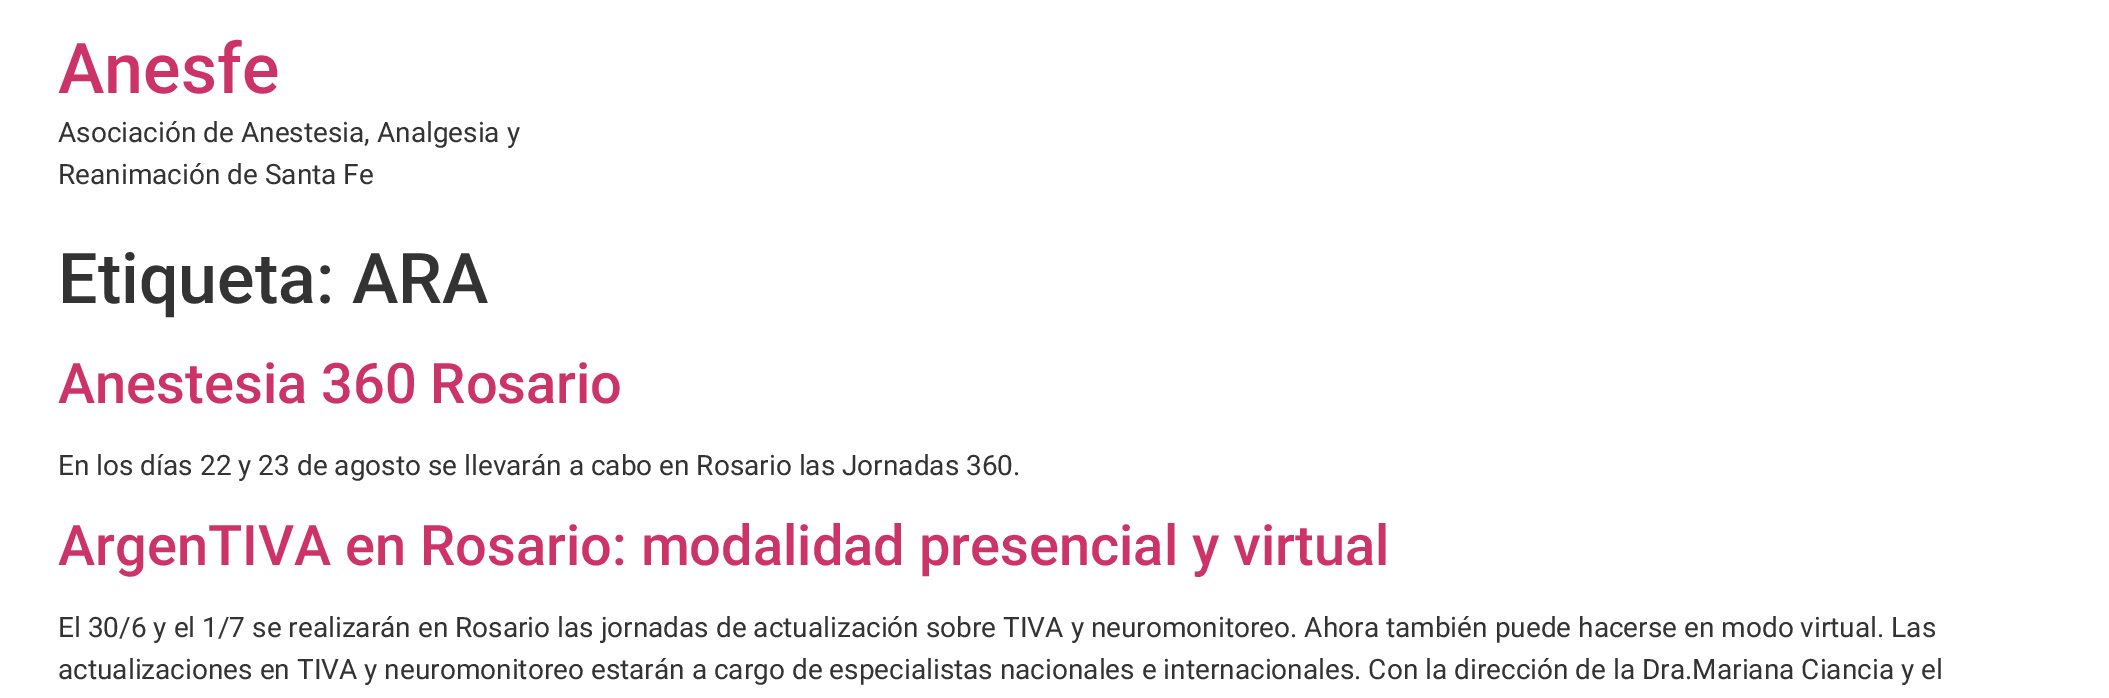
%!PS-Adobe-3.0
%%BoundingBox: 0 0 2109 698
%%LanguageLevel: 3
%%Pages: 1
%%EndComments
%%BeginProlog
/setink { 3 { 255 div 3 1 roll } repeat setrgbcolor } def
/usefont { [ exch dup neg 0 0 3 -1 roll 0 0 ] selectfont } def
/drawtext { setink usefont moveto show } def
/fillbox { setink rectfill } def
%%EndProlog
%%BeginSetup
<< /PageSize [2109 698] >> setpagedevice
%%EndSetup
%%Page: 1 1
0 698 translate 1 -1 scale
4 setmiterlimit
0 0 2109 698 255 255 255 fillbox
(Anesfe) 58 93 /Roboto-Medium 70 204 51 102 drawtext
(Asociación de Anestesia, Analgesia y) 58 142 /Roboto-Regular 28 51 51 51 drawtext
(Reanimación de Santa Fe) 58 184 /Roboto-Regular 28 51 51 51 drawtext
(Etiqueta: ARA) 58 303 /Roboto-Medium 70 51 51 51 drawtext
(Anestesia 360 Rosario) 58 403 /Roboto-Medium 56 204 51 102 drawtext
(En los días 22 y 23 de agosto se llevarán a cabo en Rosario las Jornadas 360.) 58 475 /Roboto-Regular 28 51 51 51 drawtext
(ArgenTIVA en Rosario: modalidad presencial y virtual) 58 565 /Roboto-Medium 56 204 51 102 drawtext
(El 30/6 y el 1/7 se realizarán en Rosario las jornadas de actualización sobre TIVA y neuromonitoreo. Ahora también puede hacerse en modo virtual. Las) 58 637 /Roboto-Regular 28 51 51 51 drawtext
(actualizaciones en TIVA y neuromonitoreo estarán a cargo de especialistas nacionales e internacionales. Con la dirección de la Dra.Mariana Ciancia y el) 58 679 /Roboto-Regular 28 51 51 51 drawtext
showpage
%%EOF
